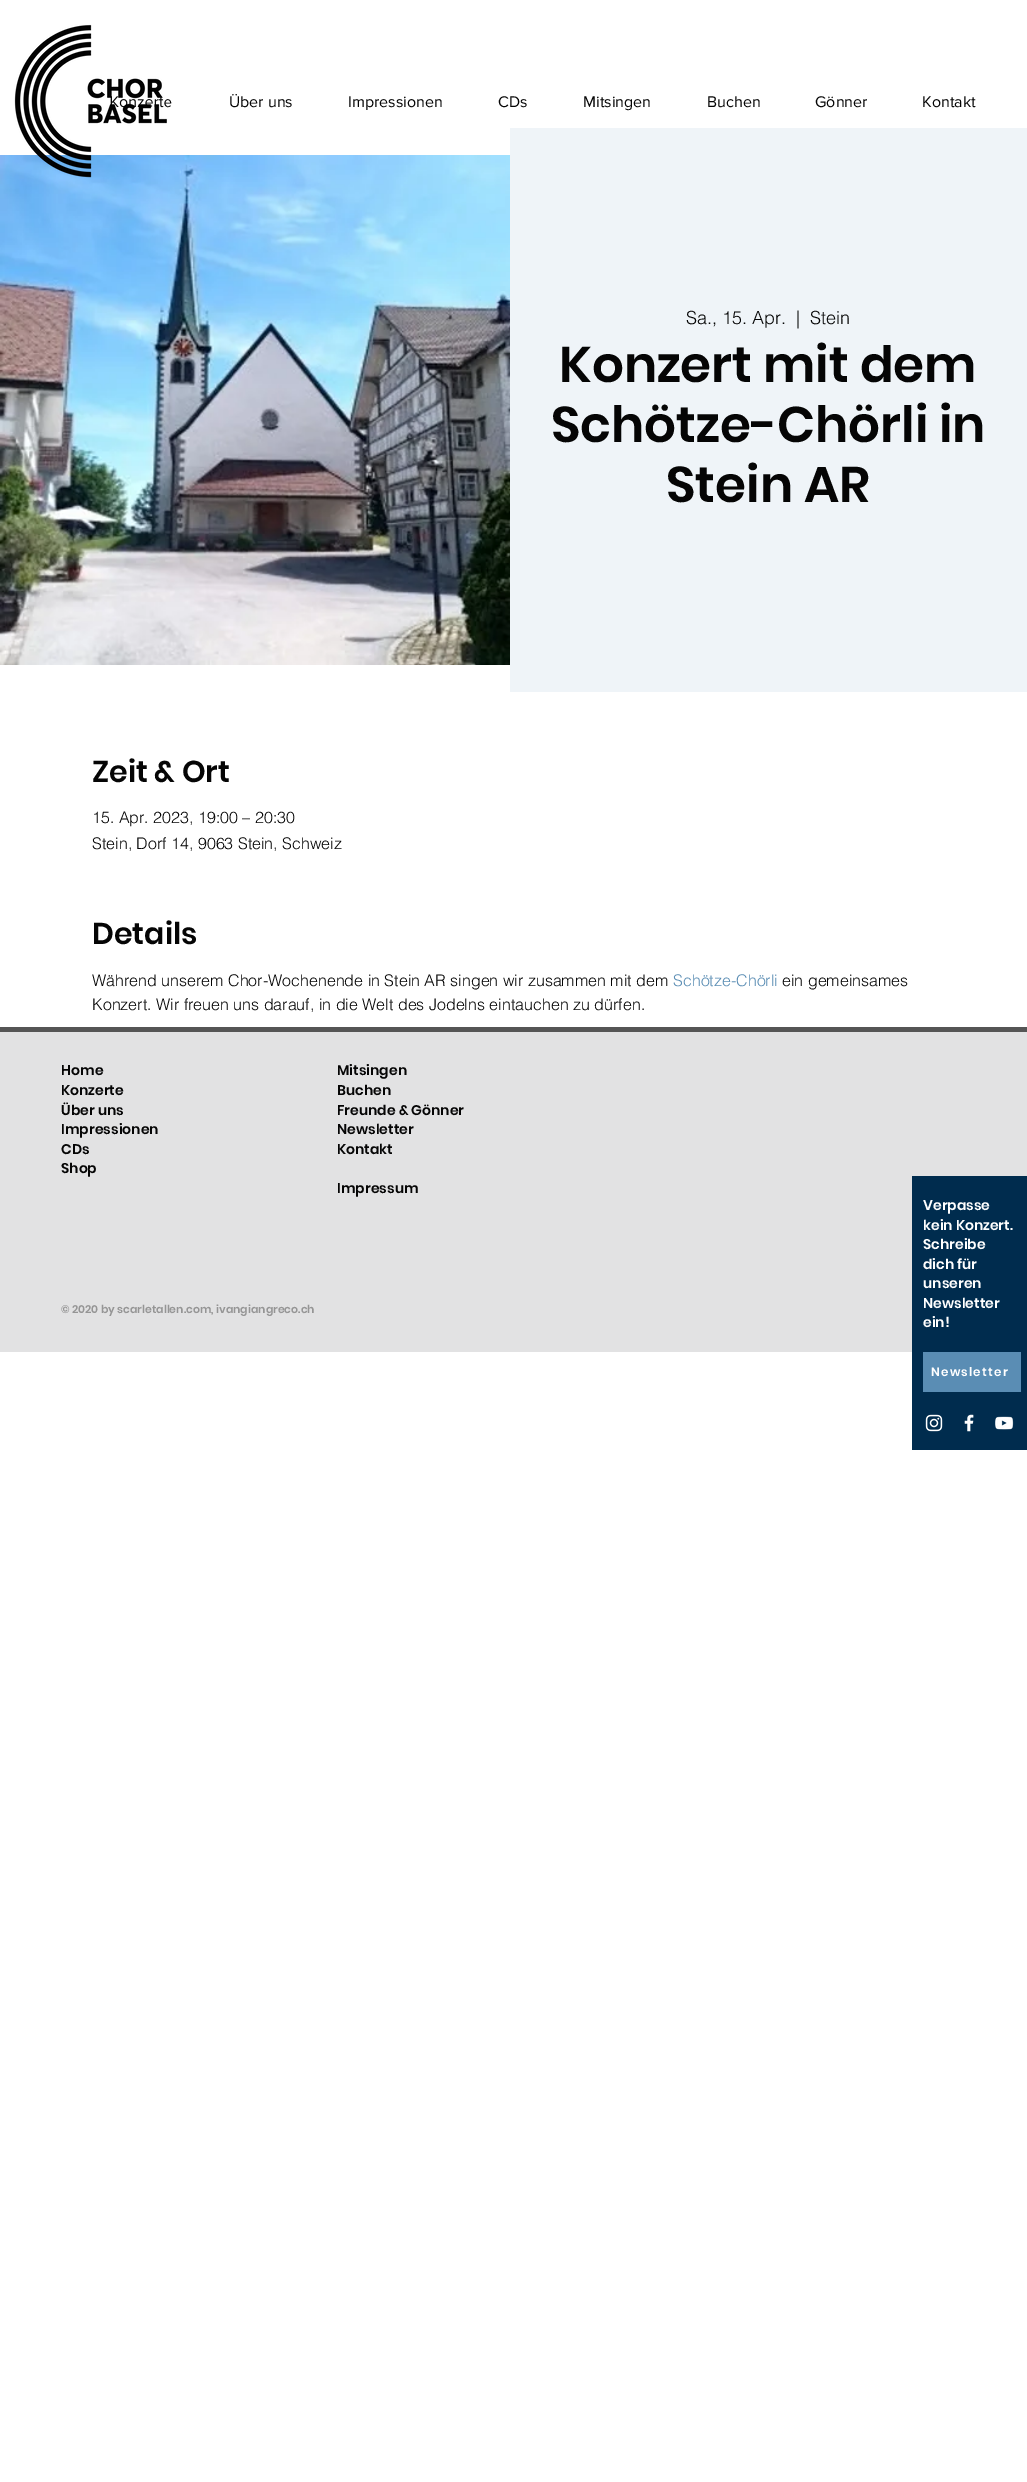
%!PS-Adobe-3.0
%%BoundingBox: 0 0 1027 2482
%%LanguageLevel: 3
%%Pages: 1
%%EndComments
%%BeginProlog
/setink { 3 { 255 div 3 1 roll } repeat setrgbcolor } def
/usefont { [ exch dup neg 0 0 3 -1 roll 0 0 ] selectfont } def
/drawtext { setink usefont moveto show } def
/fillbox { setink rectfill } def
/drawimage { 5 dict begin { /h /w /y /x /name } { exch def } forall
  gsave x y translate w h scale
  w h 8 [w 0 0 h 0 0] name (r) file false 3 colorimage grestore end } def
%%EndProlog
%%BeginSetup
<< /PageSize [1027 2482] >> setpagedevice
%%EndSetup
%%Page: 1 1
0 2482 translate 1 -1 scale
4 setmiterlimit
0 0 1027 2482 255 255 255 fillbox
(Konzerte) 109 107 /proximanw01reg-Regular 16 5 5 5 drawtext
(assets/img2.rgb) 0 155 510 510 drawimage
(assets/img1.rgb) 14 24 153 154 drawimage
(Über uns) 229 107 /proximanw01reg-Regular 16 5 5 5 drawtext
(Impressionen) 348 107 /proximanw01reg-Regular 16 5 5 5 drawtext
(CDs) 498 107 /proximanw01reg-Regular 16 5 5 5 drawtext
(Mitsingen) 583 107 /proximanw01reg-Regular 16 5 5 5 drawtext
(Buchen) 707 107 /proximanw01reg-Regular 16 5 5 5 drawtext
(Gönner) 815 107 /proximanw01reg-Regular 16 5 5 5 drawtext
(Kontakt) 922 107 /proximanw01reg-Regular 16 5 5 5 drawtext
510 128 517 564 239 244 248 fillbox
(Sa., 15. Apr.) 686 324 /helvetica-Light 18 5 5 5 drawtext
(|) 796 324 /helvetica-Light 18 5 5 5 drawtext
(Stein) 810 324 /helvetica-Light 18 5 5 5 drawtext
(Konzert mit dem) 559 382 /Poppins-SemiBold 50 5 5 5 drawtext
(Schötze-Chörli in) 551 442 /Poppins-SemiBold 50 5 5 5 drawtext
(Stein AR) 666 502 /Poppins-SemiBold 50 5 5 5 drawtext
(Zeit & Ort) 92 782 /Poppins-SemiBold 30 5 5 5 drawtext
(15. Apr. 2023, 19:00 – 20:30) 92 823 /helvetica-Light 16 5 5 5 drawtext
(Stein, Dorf 14, 9063 Stein, Schweiz) 92 849 /helvetica-Light 16 5 5 5 drawtext
(Details) 92 944 /Poppins-SemiBold 30 5 5 5 drawtext
(Während unserem Chor-Wochenende in Stein AR singen wir zusammen mit dem) 92 986 /helvetica-Light 16 5 5 5 drawtext
(Schötze-Chörli) 673 986 /helvetica-Light 16 90 141 180 drawtext
(ein gemeinsames) 782 986 /helvetica-Light 16 5 5 5 drawtext
(Konzert. Wir freuen uns darauf, in die Welt des Jodelns eintauchen zu dürfen.) 92 1010 /helvetica-Light 16 5 5 5 drawtext
0 1032 1027 320 226 226 227 fillbox
0 1027 1027 5 85 85 85 fillbox
(Home) 61 1075 /Poppins-SemiBold 14 5 5 5 drawtext
(Konzerte) 61 1095 /Poppins-SemiBold 14 5 5 5 drawtext
(Über uns) 61 1115 /Poppins-SemiBold 14 5 5 5 drawtext
(Impressionen) 61 1134 /Poppins-SemiBold 14 5 5 5 drawtext
(CDs) 61 1154 /Poppins-SemiBold 14 5 5 5 drawtext
(Shop) 61 1173 /Poppins-SemiBold 14 5 5 5 drawtext
(Mitsingen) 337 1075 /Poppins-SemiBold 14 5 5 5 drawtext
(Buchen) 337 1095 /Poppins-SemiBold 14 5 5 5 drawtext
(Freunde & Gönner) 337 1115 /Poppins-SemiBold 14 5 5 5 drawtext
(Newsletter) 337 1134 /Poppins-SemiBold 14 5 5 5 drawtext
(Kontakt) 337 1154 /Poppins-SemiBold 14 5 5 5 drawtext
(Impressum) 337 1193 /Poppins-SemiBold 14 5 5 5 drawtext
(© 2020 by scarletallen.com, ivangiangreco.ch) 61 1313 /Poppins-SemiBold 11 149 149 149 drawtext
912 1176 115 274 0 44 78 fillbox
(Verpasse) 923 1210 /Poppins-SemiBold 14 255 255 255 drawtext
(kein Konzert.) 923 1230 /Poppins-SemiBold 14 255 255 255 drawtext
(Schreibe) 923 1249 /Poppins-SemiBold 14 255 255 255 drawtext
(dich für) 923 1269 /Poppins-SemiBold 14 255 255 255 drawtext
(unseren) 923 1288 /Poppins-SemiBold 14 255 255 255 drawtext
(Newsletter) 923 1308 /Poppins-SemiBold 14 255 255 255 drawtext
(ein!) 923 1327 /Poppins-SemiBold 14 255 255 255 drawtext
923 1352 98 40 90 141 180 fillbox
/Poppins-SemiBold 12 usefont
255 255 255 setink
931 1376 moveto 1.25 0 (Newsletter) ashow
(assets/img3.rgb) 925 1414 18 18 drawimage
(assets/img4.rgb) 964 1414 10 18 drawimage
(assets/img5.rgb) 995 1416 19 14 drawimage
showpage
%%EOF
